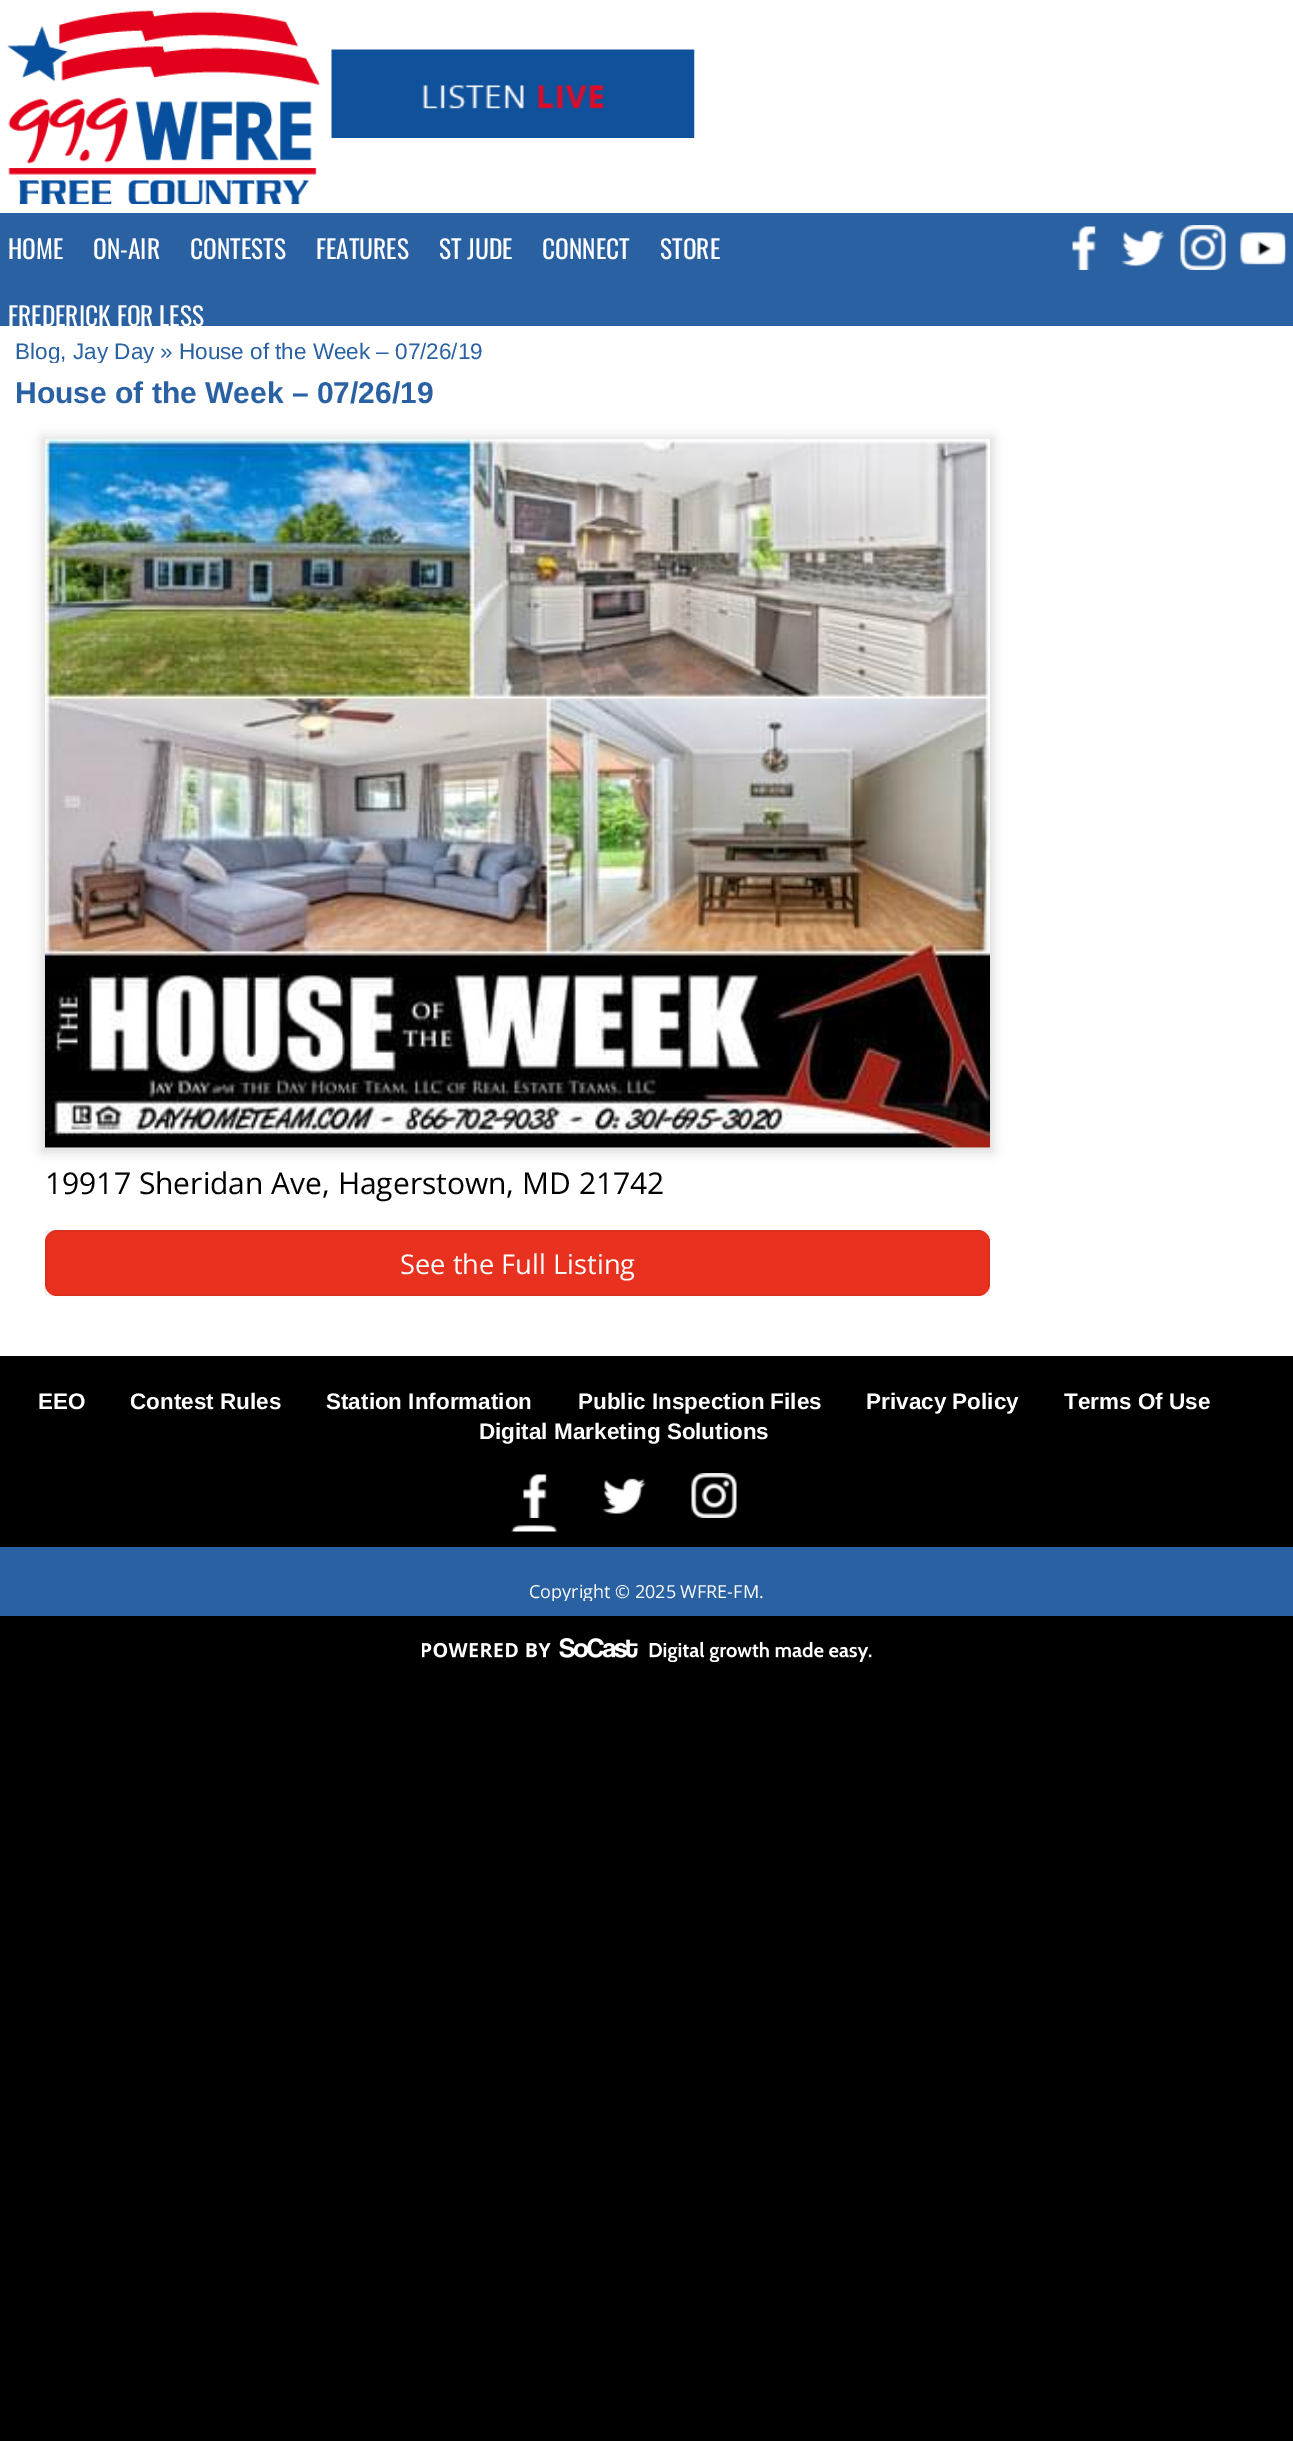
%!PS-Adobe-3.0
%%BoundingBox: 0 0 1293 2441
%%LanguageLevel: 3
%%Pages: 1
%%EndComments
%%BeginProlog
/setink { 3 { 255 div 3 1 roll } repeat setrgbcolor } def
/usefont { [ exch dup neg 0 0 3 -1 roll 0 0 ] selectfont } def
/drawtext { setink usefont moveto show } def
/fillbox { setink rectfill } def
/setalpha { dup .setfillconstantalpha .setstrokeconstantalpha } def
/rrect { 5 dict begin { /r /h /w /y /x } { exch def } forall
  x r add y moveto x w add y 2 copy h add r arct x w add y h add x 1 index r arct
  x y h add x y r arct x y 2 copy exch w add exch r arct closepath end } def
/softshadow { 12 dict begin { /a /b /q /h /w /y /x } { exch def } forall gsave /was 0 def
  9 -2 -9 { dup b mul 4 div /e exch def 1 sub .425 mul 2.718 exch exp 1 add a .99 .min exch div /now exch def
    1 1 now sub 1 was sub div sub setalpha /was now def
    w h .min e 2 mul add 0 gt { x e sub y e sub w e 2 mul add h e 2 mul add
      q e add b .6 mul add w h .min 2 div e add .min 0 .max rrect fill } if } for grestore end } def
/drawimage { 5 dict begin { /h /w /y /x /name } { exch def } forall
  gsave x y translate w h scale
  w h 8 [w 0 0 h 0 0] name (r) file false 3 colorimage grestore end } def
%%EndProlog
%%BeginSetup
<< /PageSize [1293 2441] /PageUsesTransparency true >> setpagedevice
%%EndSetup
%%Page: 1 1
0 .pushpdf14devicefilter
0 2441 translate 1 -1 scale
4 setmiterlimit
0 0 1293 2441 0 0 0 fillbox
0 0 1293 213 255 255 255 fillbox
(assets/img1.rgb) 7 10 313 194 drawimage
(assets/img2.rgb) 331 49 364 89 drawimage
0 213 1293 113 42 97 162 fillbox
(HOME) 8 259 /Oswald-Regular 25.5 255 255 255 drawtext
(ON-AIR) 93 259 /Oswald-Regular 25.5 255 255 255 drawtext
(CONTESTS) 190 259 /Oswald-Regular 25.5 255 255 255 drawtext
(FEATURES) 316 259 /Oswald-Regular 25.5 255 255 255 drawtext
(ST JUDE) 439 259 /Oswald-Regular 25.5 255 255 255 drawtext
(CONNECT) 542 259 /Oswald-Regular 25.5 255 255 255 drawtext
(STORE) 660 259 /Oswald-Regular 25.5 255 255 255 drawtext
0 326 1293 1030 255 255 255 fillbox
(FREDERICK FOR LESS) 8 326 /Oswald-Regular 25.5 255 255 255 drawtext
(assets/img3.rgb) 1072 226 24 44 drawimage
(assets/img4.rgb) 1121 230 44 36 drawimage
(assets/img5.rgb) 1180 225 46 45 drawimage
(assets/img6.rgb) 1240 232 46 33 drawimage
gsave
15 341 1005 22 rectclip
(Blog) 15 359 /LiberationSans-Regular 22.5 42 97 162 drawtext
grestore
(,) 60 359 /LiberationSans-Regular 22.5 42 97 162 drawtext
gsave
15 341 1005 22 rectclip
(Jay Day) 73 359 /LiberationSans-Regular 22.5 42 97 162 drawtext
grestore
(» House of the Week – 07/26/19) 160 359 /LiberationSans-Regular 22.5 42 97 162 drawtext
(House of the Week – 07/26/19) 15 403 /LiberationSans-Bold 30 42 97 162 drawtext
0 0 0 setink
42 438 951 714 0 6 0.15 softshadow
(assets/img7.rgb) 45 439 945 709 drawimage
(19917 Sheridan Ave, Hagerstown, MD 21742) 45 1194 /OpenSans-Regular 30 0 0 0 drawtext
232 49 31 setink
45 1230 945 66 12 rrect fill
0.05 setalpha
0 0 0 setink
2 setlinewidth
46 1231 943 64 rectstroke
1 setalpha
(See the Full Listing) 400 1274 /OpenSans-Regular 27.25 255 255 255 drawtext
(EEO) 38 1409 /LiberationSans-Bold 22.5 255 255 255 drawtext
(Contest Rules) 130 1409 /LiberationSans-Bold 22.5 255 255 255 drawtext
(Station Information) 326 1409 /LiberationSans-Bold 22.5 255 255 255 drawtext
(Public Inspection Files) 578 1409 /LiberationSans-Bold 22.5 255 255 255 drawtext
(Privacy Policy) 866 1409 /LiberationSans-Bold 22.5 255 255 255 drawtext
(Terms Of Use) 1064 1409 /LiberationSans-Bold 22.5 255 255 255 drawtext
(Digital Marketing Solutions) 479 1439 /LiberationSans-Bold 22.5 255 255 255 drawtext
(assets/img8.rgb) 523 1474 24 44 drawimage
(assets/img9.rgb) 602 1478 44 36 drawimage
(assets/img10.rgb) 691 1473 46 45 drawimage
(assets/img11.rgb) 511 1525 46 7 drawimage
0 1547 1293 69 42 97 162 fillbox
gsave
0 1562 1293 39 rectclip
(Copyright © 2025 WFRE-FM.) 529 1598 /OpenSans-Regular 18 255 255 255 drawtext
grestore
(assets/img12.rgb) 422 1638 450 24 drawimage
.poppdf14devicefilter showpage
%%EOF
